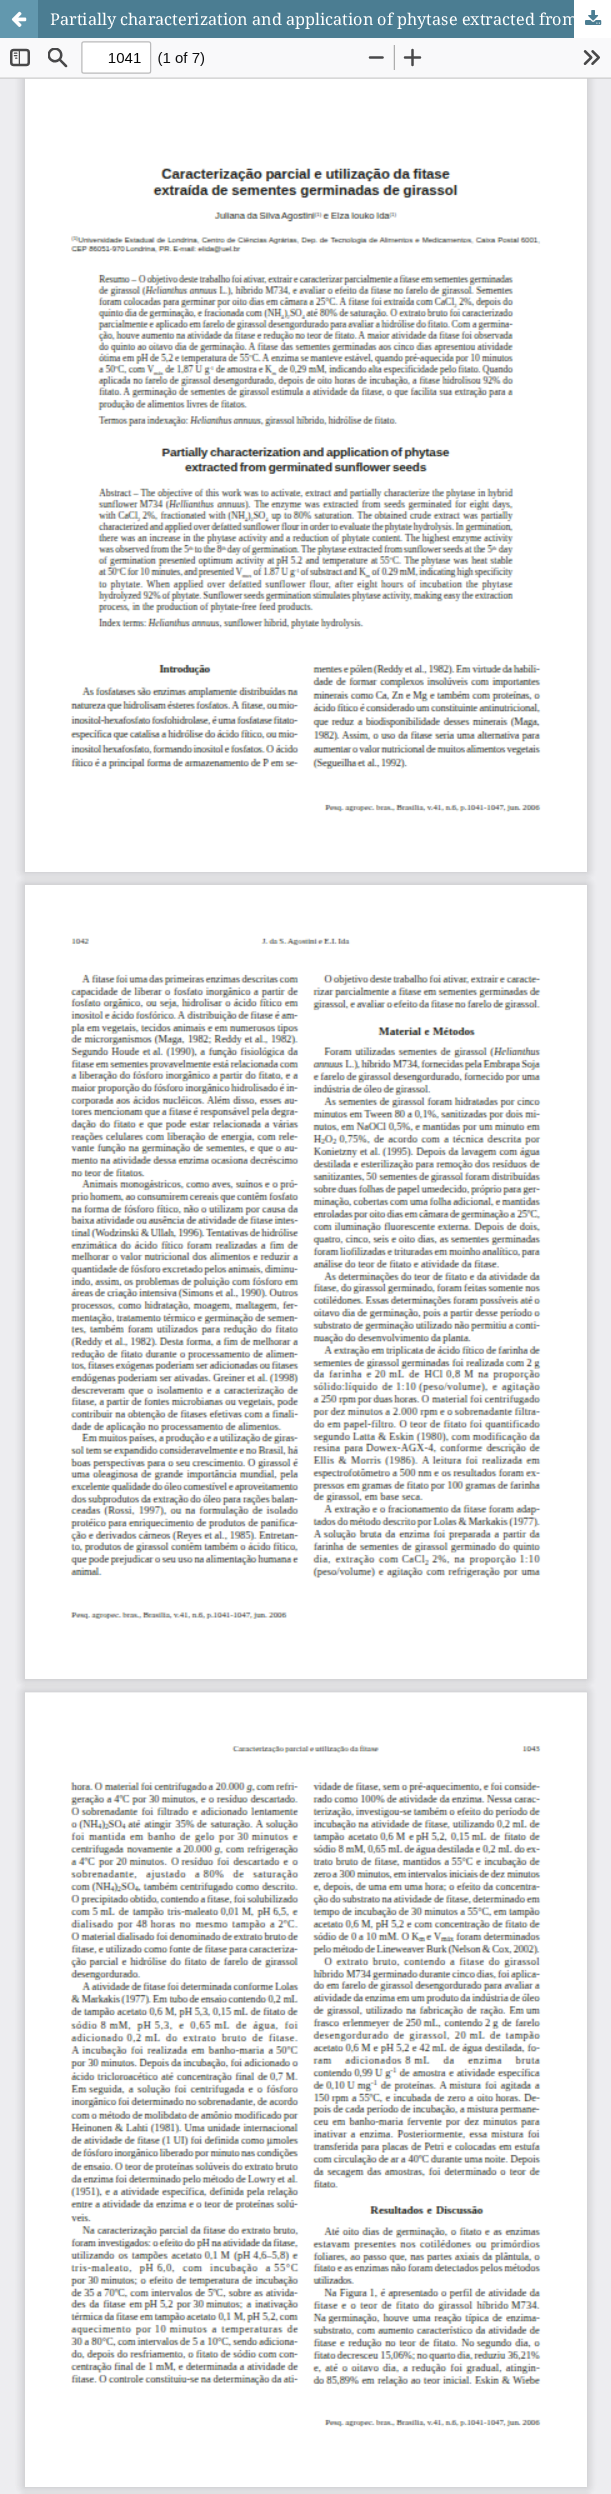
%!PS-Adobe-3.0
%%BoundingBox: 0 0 611 2494
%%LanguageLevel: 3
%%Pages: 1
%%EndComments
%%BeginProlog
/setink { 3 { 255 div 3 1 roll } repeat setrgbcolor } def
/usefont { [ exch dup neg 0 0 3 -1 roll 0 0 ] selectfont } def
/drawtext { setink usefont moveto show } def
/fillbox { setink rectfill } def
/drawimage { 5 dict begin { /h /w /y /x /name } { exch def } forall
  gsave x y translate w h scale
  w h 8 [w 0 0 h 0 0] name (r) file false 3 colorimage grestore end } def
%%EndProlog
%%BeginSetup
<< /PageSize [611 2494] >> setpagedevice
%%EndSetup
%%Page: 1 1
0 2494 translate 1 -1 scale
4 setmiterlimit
0 0 611 2494 255 255 255 fillbox
38 0 536 38 75 125 146 fillbox
0 0 38 38 98 152 174 fillbox
(assets/img1.rgb) 11 11 16 16 drawimage
(Partially characterization and application of phytase extracted from) 50 25 /NotoSerif-Regular 16.25 255 255 255 drawtext
(assets/img2.rgb) 585 10 17 15 drawimage
(assets/img3.rgb) 0 38 611 2456 drawimage
showpage
%%EOF
